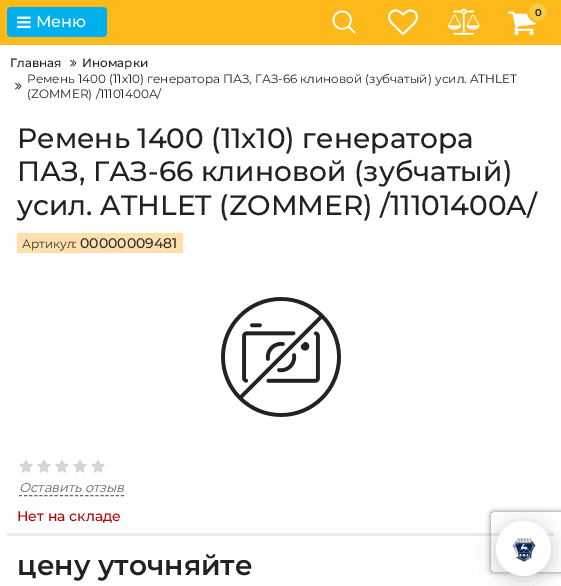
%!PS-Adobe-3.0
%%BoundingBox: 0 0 561 586
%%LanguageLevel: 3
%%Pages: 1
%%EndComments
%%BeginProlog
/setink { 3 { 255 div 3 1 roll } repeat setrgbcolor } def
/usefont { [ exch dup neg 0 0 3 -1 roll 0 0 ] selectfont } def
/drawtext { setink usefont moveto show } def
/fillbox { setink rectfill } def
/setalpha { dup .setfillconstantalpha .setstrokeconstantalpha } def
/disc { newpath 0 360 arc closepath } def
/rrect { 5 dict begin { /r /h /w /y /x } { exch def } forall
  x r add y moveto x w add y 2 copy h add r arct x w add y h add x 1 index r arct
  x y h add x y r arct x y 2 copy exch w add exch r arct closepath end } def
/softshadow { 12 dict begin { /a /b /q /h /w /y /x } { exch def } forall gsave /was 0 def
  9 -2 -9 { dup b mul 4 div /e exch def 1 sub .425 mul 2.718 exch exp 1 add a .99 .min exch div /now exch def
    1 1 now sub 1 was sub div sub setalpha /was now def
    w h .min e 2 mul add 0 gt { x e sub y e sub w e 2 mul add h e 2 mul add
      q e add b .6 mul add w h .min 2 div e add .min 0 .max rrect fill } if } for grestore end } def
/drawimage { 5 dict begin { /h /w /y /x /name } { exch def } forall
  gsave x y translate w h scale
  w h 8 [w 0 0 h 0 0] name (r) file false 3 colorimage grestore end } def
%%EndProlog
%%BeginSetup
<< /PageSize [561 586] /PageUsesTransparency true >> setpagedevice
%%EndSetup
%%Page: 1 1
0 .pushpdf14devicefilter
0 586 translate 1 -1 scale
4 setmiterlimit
0 0 561 586 255 255 255 fillbox
0 0 561 45 253 185 25 fillbox
(assets/img1.rgb) 332 10 24 24 drawimage
(assets/img2.rgb) 388 9 30 27 drawimage
(assets/img3.rgb) 448 8 32 27 drawimage
(assets/img4.rgb) 508 11 28 25 drawimage
245 204 67 setink
538 12 10 disc gsave fill grestore
253 185 25 setink
2 setlinewidth
stroke
(0) 535 16 /Montserrat-SemiBold 10 34 34 34 drawtext
0 175 238 setink
7 7 100 30 4 rrect fill
(assets/img5.rgb) 17 16 14 12 drawimage
(Меню) 36 27 /Montserrat-Medium 16 255 255 255 drawtext
(Главная) 10 67 /Montserrat-Medium 12 34 34 34 drawtext
(assets/img6.rgb) 70 59 7 8 drawimage
(Иномарки) 82 67 /Montserrat-Medium 12 34 34 34 drawtext
(assets/img6.rgb) 15 82 7 8 drawimage
(Ремень 1400 \(11х10\) генератора ПАЗ, ГАЗ-66 клиновой \(зубчатый\) усил. ATHLET) 27 83 /Montserrat-Regular 12 34 34 34 drawtext
(\(ZOMMER\) /11101400A/) 27 98 /Montserrat-Regular 12 34 34 34 drawtext
(Ремень 1400 \(11х10\) генератора) 17 148 /Montserrat-Medium 28 34 34 34 drawtext
(ПАЗ, ГАЗ-66 клиновой \(зубчатый\)) 17 181 /Montserrat-Medium 28 34 34 34 drawtext
(усил. ATHLET \(ZOMMER\) /11101400A/) 17 215 /Montserrat-Medium 28 34 34 34 drawtext
17 233 166 20 255 224 172 fillbox
(Артикул:) 22 248 /Montserrat-Regular 12 47 47 47 drawtext
(00000009481) 80 248 /Montserrat-Medium 14 47 47 47 drawtext
(assets/img7.rgb) 221 297 120 120 drawimage
7 533 547 3 233 234 237 fillbox
(assets/img8.rgb) 19 459 86 14 drawimage
102 102 102 setink
1 setlinewidth
[3 2.1] 0 setdash
19 495.5 moveto 124 495.5 lineto stroke
(Оставить отзыв) 19 492 /Montserrat-Italic 13 102 102 102 drawtext
(Нет на складе) 17 521 /Montserrat-Medium 14 177 7 7 drawtext
(цену уточняйте) 17 575 /Montserrat-SemiBold 28 34 34 34 drawtext
0 0 0 setink
496 525 55 55 27.5 10 0.2 softshadow
gsave
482 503 moveto 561 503 lineto 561 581 lineto 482 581 lineto closepath 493 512 moveto 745 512 lineto 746 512 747 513 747 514 curveto 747 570 lineto 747 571 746 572 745 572 curveto 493 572 lineto 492 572 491 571 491 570 curveto 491 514 lineto 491 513 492 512 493 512 curveto closepath eoclip newpath
128 128 128 setink
491 512 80 60 2 2.5 1 softshadow
grestore
255 255 255 setink
523.5 548.5 27.5 disc fill
(assets/img9.rgb) 512 538 24 24 drawimage
.poppdf14devicefilter showpage
%%EOF
